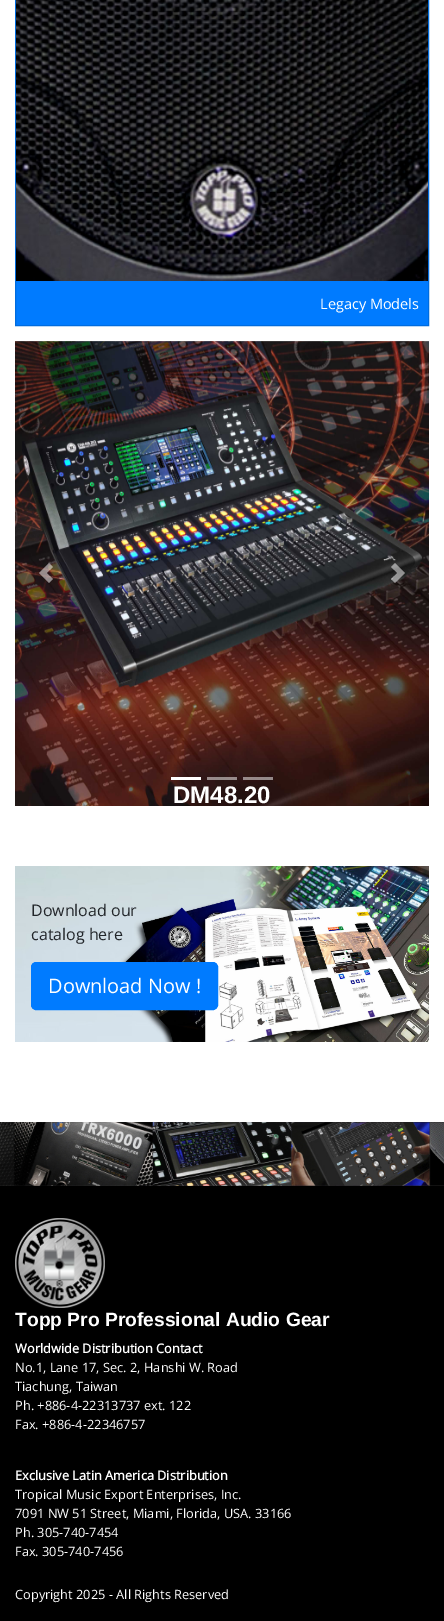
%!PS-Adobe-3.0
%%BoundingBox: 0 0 444 1621
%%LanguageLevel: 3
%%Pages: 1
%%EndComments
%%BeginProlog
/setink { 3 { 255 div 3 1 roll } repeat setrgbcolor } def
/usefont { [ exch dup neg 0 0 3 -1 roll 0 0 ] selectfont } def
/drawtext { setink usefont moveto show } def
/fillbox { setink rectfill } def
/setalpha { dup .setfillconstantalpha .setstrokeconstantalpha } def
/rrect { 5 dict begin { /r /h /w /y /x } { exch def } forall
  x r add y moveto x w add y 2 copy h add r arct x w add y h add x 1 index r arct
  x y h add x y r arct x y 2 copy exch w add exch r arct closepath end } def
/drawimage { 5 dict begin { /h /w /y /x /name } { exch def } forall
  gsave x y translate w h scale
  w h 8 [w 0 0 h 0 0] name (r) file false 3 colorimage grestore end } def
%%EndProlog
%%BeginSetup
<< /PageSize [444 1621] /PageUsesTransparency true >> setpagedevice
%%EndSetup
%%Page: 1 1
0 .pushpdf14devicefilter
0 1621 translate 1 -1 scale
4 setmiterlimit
0 0 444 1621 255 255 255 fillbox
16 281 412 44 0 123 255 fillbox
0 108 223 setink
15.5 -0.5 413 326 rectstroke
(assets/img1.rgb) 16 0 412 281 drawimage
(Legacy Models) 320 309 /OpenSans-Regular 14.5 255 255 255 drawtext
(assets/img2.rgb) 15 341 414 465 drawimage
0.5 setalpha
49 563 moveto 39 573 lineto 49 583 lineto 53 579 lineto 46.5 573 lineto 53 567 lineto closepath fill
395 563 moveto 391 567 lineto 397.5 573 lineto 391 579 lineto 395 583 lineto 405 573 lineto closepath fill
1 setalpha
171 777 30 3 255 255 255 fillbox
0.5 setalpha
207 777 30 3 255 255 255 fillbox
243 777 30 3 255 255 255 fillbox
1 setalpha
(DM48.20) 173 803 /LiberationSans-Bold 24 255 255 255 drawtext
(assets/img3.rgb) 15 866 414 176 drawimage
(Download our) 31 916 /OpenSans-Regular 16 33 37 41 drawtext
(catalog here) 31 940 /OpenSans-Regular 16 33 37 41 drawtext
0 123 255 setink
31.5 962.5 186 47 4.5 rrect gsave fill grestore
stroke
(Download Now !) 48 993 /OpenSans-Regular 20 255 255 255 drawtext
0 1186 444 435 0 0 0 fillbox
(assets/img4.rgb) 0 1122 444 64 drawimage
(assets/img5.rgb) 15 1218 90 90 drawimage
(Topp Pro Professional Audio Gear) 15 1326 /LiberationSans-Bold 19.25 255 255 255 drawtext
(Worldwide Distribution Contact) 15 1353 /OpenSans-Bold 12.8 255 255 255 drawtext
(No.1, Lane 17, Sec. 2, Hanshi W. Road) 15 1372 /OpenSans-Regular 12.8 255 255 255 drawtext
(Tiachung, Taiwan) 15 1391 /OpenSans-Regular 12.8 255 255 255 drawtext
(Ph. +886-4-22313737 ext. 122) 15 1410 /OpenSans-Regular 12.8 255 255 255 drawtext
(Fax. +886-4-22346757) 15 1429 /OpenSans-Regular 12.8 255 255 255 drawtext
(Exclusive Latin America Distribution) 15 1480 /OpenSans-Bold 12.8 255 255 255 drawtext
(Tropical Music Export Enterprises, Inc.) 15 1499 /OpenSans-Regular 12.8 255 255 255 drawtext
(7091 NW 51 Street, Miami, Florida, USA. 33166) 15 1518 /OpenSans-Regular 12.8 255 255 255 drawtext
(Ph. 305-740-7454) 15 1537 /OpenSans-Regular 12.8 255 255 255 drawtext
(Fax. 305-740-7456) 15 1556 /OpenSans-Regular 12.8 255 255 255 drawtext
(Copyright 2025 - All Rights Reserved) 15 1599 /OpenSans-Regular 12.8 255 255 255 drawtext
.poppdf14devicefilter showpage
%%EOF
